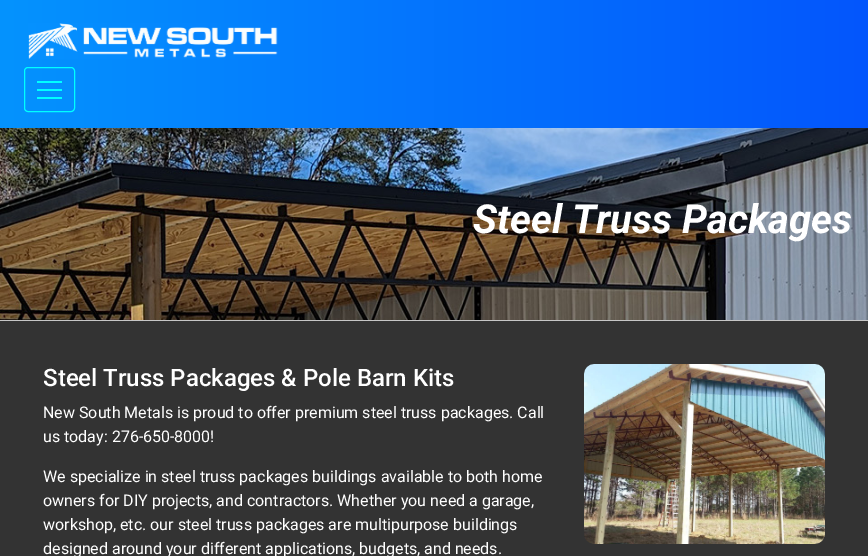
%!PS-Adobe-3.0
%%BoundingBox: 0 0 868 556
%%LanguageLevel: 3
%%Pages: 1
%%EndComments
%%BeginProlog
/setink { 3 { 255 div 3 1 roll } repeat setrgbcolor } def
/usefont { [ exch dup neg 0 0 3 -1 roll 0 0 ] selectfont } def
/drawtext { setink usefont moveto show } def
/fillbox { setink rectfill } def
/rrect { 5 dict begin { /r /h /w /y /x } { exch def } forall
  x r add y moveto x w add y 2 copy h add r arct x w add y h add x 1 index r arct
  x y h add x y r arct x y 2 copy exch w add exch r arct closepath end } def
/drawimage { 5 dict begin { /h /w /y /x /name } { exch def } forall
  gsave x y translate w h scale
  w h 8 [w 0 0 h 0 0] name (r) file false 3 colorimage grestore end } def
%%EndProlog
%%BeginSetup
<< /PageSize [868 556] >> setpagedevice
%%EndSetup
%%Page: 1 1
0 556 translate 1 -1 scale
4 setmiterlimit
0 0 868 556 51 51 51 fillbox
gsave 0 0 moveto 868 0 lineto 868 128 lineto 0 128 lineto closepath clip newpath
<< /ShadingType 2 /ColorSpace /DeviceRGB /Coords [0 64 868 64] /Extend [true true] /Function << /FunctionType 2 /Domain [0 1] /C0 [0.02 0.576 0.996] /C1 [0.012 0.337 0.988] /N 1 >> >> shfill grestore
(assets/img1.rgb) 28 23 250 36 drawimage
0 255 255 setink
24.5 67.5 50 44 3.5 rrect stroke
37 81 25 2 0 255 255 fillbox
37 89 25 2 0 255 255 fillbox
37 97 25 2 0 255 255 fillbox
(assets/img2.rgb) 0 128 868 192 drawimage
(Steel Truss Packages) 473 233 /Roboto-BoldItalic 40 255 255 255 drawtext
0 320 868 1 199 199 199 fillbox
(Steel Truss Packages & Pole Barn Kits) 43 386 /Roboto-Medium 24 255 255 255 drawtext
(New South Metals is proud to offer premium steel truss packages. Call) 43 418 /Roboto-Regular 16 255 255 255 drawtext
(us today: 276-650-8000!) 43 442 /Roboto-Regular 16 255 255 255 drawtext
(We specialize in steel truss packages buildings available to both home) 43 482 /Roboto-Regular 16 255 255 255 drawtext
(owners for DIY projects, and contractors. Whether you need a garage,) 43 506 /Roboto-Regular 16 255 255 255 drawtext
(workshop, etc. our steel truss packages are multipurpose buildings) 43 530 /Roboto-Regular 16 255 255 255 drawtext
(designed around your different applications, budgets, and needs.) 43 554 /Roboto-Regular 16 255 255 255 drawtext
(assets/img3.rgb) 584 364 241 180 drawimage
showpage
%%EOF
